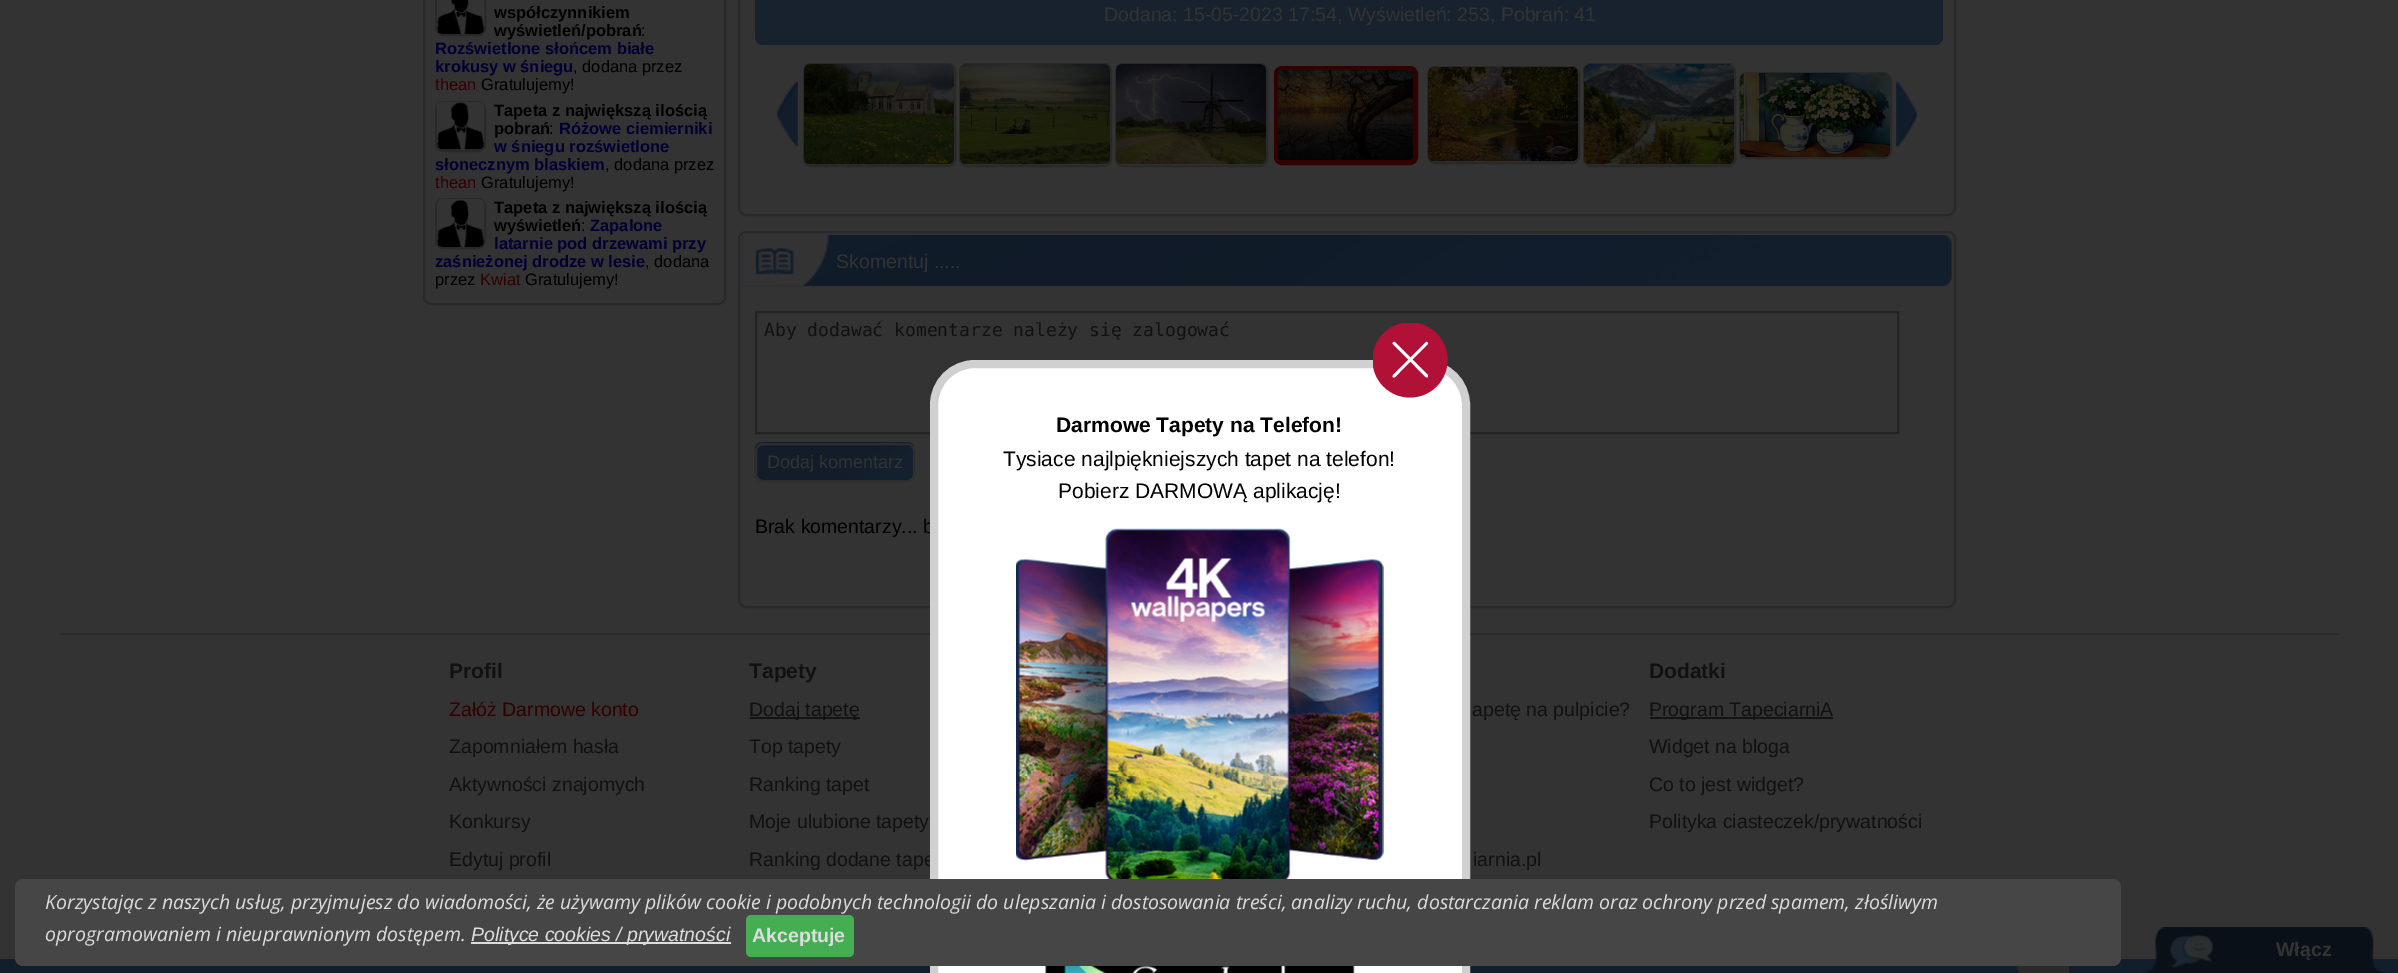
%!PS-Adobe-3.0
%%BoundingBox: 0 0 2398 973
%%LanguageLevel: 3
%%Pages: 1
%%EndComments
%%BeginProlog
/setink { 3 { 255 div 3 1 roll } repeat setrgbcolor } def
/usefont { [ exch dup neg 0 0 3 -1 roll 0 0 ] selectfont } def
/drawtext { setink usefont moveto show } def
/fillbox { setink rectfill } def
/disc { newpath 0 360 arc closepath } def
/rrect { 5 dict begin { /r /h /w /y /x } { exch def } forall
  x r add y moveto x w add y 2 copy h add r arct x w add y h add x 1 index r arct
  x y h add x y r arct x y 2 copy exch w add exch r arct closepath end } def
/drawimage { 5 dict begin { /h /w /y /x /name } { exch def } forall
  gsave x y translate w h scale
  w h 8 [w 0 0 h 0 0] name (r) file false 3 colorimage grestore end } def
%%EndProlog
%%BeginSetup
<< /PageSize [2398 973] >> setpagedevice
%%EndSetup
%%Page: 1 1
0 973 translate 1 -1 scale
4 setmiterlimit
0 0 2398 973 51 51 51 fillbox
41 41 41 setink
2 setlinewidth
424 -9 301 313 7 rrect stroke
436 -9 49 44 7 rrect stroke
(assets/img1.rgb) 436 0 49 34 drawimage
(współczynnikiem) 494 18 /LiberationSans-Bold 16.5 0 0 0 drawtext
(wyświetleń/pobrań) 494 36 /LiberationSans-Bold 16.5 0 0 0 drawtext
(:) 641 36 /LiberationSans-Regular 16.5 0 0 0 drawtext
(Rozświetlone słońcem białe) 435 54 /LiberationSans-Bold 16.5 0 0 51 drawtext
(krokusy w śniegu) 435 72 /LiberationSans-Bold 16.5 0 0 51 drawtext
(, dodana przez) 573 72 /LiberationSans-Regular 16.5 0 0 0 drawtext
(thean) 435 90 /LiberationSans-Regular 16.5 51 0 0 drawtext
(Gratulujemy!) 481 90 /LiberationSans-Regular 16.5 0 0 0 drawtext
41 41 41 setink
436 102 49 49 7 rrect stroke
(assets/img2.rgb) 436 101 49 49 drawimage
(Tapeta z największą ilością) 494 116 /LiberationSans-Bold 16.5 0 0 0 drawtext
(pobrań) 494 134 /LiberationSans-Bold 16.5 0 0 0 drawtext
(:) 549 134 /LiberationSans-Regular 16.5 0 0 0 drawtext
(Różowe ciemierniki) 559 134 /LiberationSans-Bold 16.5 0 0 51 drawtext
(w śniegu rozświetlone) 494 152 /LiberationSans-Bold 16.5 0 0 51 drawtext
(słonecznym blaskiem) 435 170 /LiberationSans-Bold 16.5 0 0 51 drawtext
(, dodana przez) 605 170 /LiberationSans-Regular 16.5 0 0 0 drawtext
(thean) 435 188 /LiberationSans-Regular 16.5 51 0 0 drawtext
(Gratulujemy!) 481 188 /LiberationSans-Regular 16.5 0 0 0 drawtext
41 41 41 setink
436 199 49 49 7 rrect stroke
(assets/img3.rgb) 436 199 49 48 drawimage
(Tapeta z największą ilością) 494 213 /LiberationSans-Bold 16.5 0 0 0 drawtext
(wyświetleń) 494 231 /LiberationSans-Bold 16.5 0 0 0 drawtext
(:) 581 231 /LiberationSans-Regular 16.5 0 0 0 drawtext
(Zapalone) 590 231 /LiberationSans-Bold 16.5 0 0 51 drawtext
(latarnie pod drzewami przy) 494 249 /LiberationSans-Bold 16.5 0 0 51 drawtext
(zaśnieżonej drodze w lesie) 435 267 /LiberationSans-Bold 16.5 0 0 51 drawtext
(, dodana) 645 267 /LiberationSans-Regular 16.5 0 0 0 drawtext
(przez) 435 285 /LiberationSans-Regular 16.5 0 0 0 drawtext
(Kwiat) 480 285 /LiberationSans-Regular 16.5 51 0 0 drawtext
(Gratulujemy!) 525 285 /LiberationSans-Regular 16.5 0 0 0 drawtext
41 41 41 setink
739 -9 1216 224 7 rrect stroke
24 34 46 setink
755 -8 moveto 1943 -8 lineto 1943 37 lineto 1943 41.5 1939.5 45 1935 45 curveto 763 45 lineto 758.5 45 755 41.5 755 37 curveto closepath fill
(Dodana: 15-05-2023 17:54, Wyświetleń: 253, Pobrań: 41) 1104 21 /LiberationSans-Regular 19.5 51 51 51 drawtext
(assets/img4.rgb) 777 82 21 65 drawimage
41 41 41 setink
804 64 151 102 7 rrect stroke
(assets/img5.rgb) 804 64 150 101 drawimage
960 64 151 102 7 rrect stroke
(assets/img6.rgb) 960 64 150 101 drawimage
1116 64 151 102 7 rrect stroke
(assets/img7.rgb) 1116 64 150 101 drawimage
51 0 0 setink
5 setlinewidth
1276.5 68.5 139 94 5.5 rrect stroke
(assets/img8.rgb) 1278 70 135 90 drawimage
41 41 41 setink
2 setlinewidth
1428 67 151 96 7 rrect stroke
(assets/img9.rgb) 1428 67 150 95 drawimage
1584 64 151 102 7 rrect stroke
(assets/img10.rgb) 1584 64 150 101 drawimage
1740 73 151 85 7 rrect stroke
(assets/img11.rgb) 1740 73 150 84 drawimage
(assets/img12.rgb) 1896 82 21 65 drawimage
739 232 1216 375 7 rrect stroke
(assets/img13.rgb) 742 235 1210 52 drawimage
(assets/img14.rgb) 742 235 88 52 drawimage
(Skomentuj .....) 836 268 /LiberationSans-Regular 19.5 51 51 51 drawtext
35 35 35 setink
756 312 1142 121 rectstroke
(Aby dodawać komentarze należy się zalogować) 764 336 /DejaVuSansMono-Regular 18 17 17 17 drawtext
(assets/img15.rgb) 754 442 160 39 drawimage
46 46 46 setink
756 444 158 37 7 rrect stroke
(Dodaj komentarz) 767 468 /LiberationSans-Regular 18 51 51 51 drawtext
(Brak komentarzy... b) 755 533 /LiberationSans-Regular 19.5 0 0 0 drawtext
60 633 2279 2 44 44 44 fillbox
(Ranking dodane tape) 749 866 /LiberationSans-Regular 19.5 17 17 17 drawtext
0 959 2398 14 18 30 44 fillbox
255 255 255 setink
934 364 532 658 41 rrect gsave fill grestore
208 208 208 setink
8 setlinewidth
stroke
gsave
1373 323 75 75 rectclip
178 17 55 setink
1410 360 37.5 disc fill
grestore
255 255 255 setink
1412.5 359.5 moveto 1414 357.5 1428 344.5 1428 343.5 curveto 1428 342.5 1427 341.5 1426 342 curveto 1410.5 357.5 lineto 1395 342 lineto 1394 341.5 1392.5 342.5 1392.5 343.5 curveto 1393 344.5 1406.5 357.5 1408.5 359.5 curveto 1393 375 lineto 1392.5 376.5 lineto 1394 379.5 1397 375 1400 372 curveto 1410.5 361.5 lineto 1420.5 372 lineto 1424 375 1427 379.5 1428 376.5 curveto 1428 375 lineto closepath fill
(Darmowe Tapety na Telefon!) 1056 432 /LiberationSans-Bold 21 0 0 0 drawtext
(Tysiace najlpiękniejszych tapet na telefon!) 1003 466 /LiberationSans-Regular 21 0 0 0 drawtext
(Pobierz DARMOWĄ aplikację!) 1058 498 /LiberationSans-Regular 21 0 0 0 drawtext
(assets/img16.rgb) 1016 528 368 351 drawimage
(assets/img17.rgb) 1045 966 310 7 drawimage
(Profil) 449 678 /LiberationSans-Bold 21 17 17 17 drawtext
(Załóż Darmowe konto) 449 716 /LiberationSans-Regular 19.5 51 0 0 drawtext
(Zapomniałem hasła) 449 753 /LiberationSans-Regular 19.5 17 17 17 drawtext
(Aktywności znajomych) 449 791 /LiberationSans-Regular 19.5 17 17 17 drawtext
(Konkursy) 449 828 /LiberationSans-Regular 19.5 17 17 17 drawtext
(Edytuj profil) 449 866 /LiberationSans-Regular 19.5 17 17 17 drawtext
(Tapety) 749 678 /LiberationSans-Bold 21 17 17 17 drawtext
750 717 110 2 20 20 20 fillbox
(Dodaj tapetę) 749 716 /LiberationSans-Regular 19.5 17 17 17 drawtext
(Top tapety) 749 753 /LiberationSans-Regular 19.5 17 17 17 drawtext
(Ranking tapet) 749 791 /LiberationSans-Regular 19.5 17 17 17 drawtext
(Moje ulubione tapety) 749 828 /LiberationSans-Regular 19.5 17 17 17 drawtext
(apetę na pulpicie?) 1472 716 /LiberationSans-Regular 19.5 17 17 17 drawtext
(iarnia.pl) 1473 866 /LiberationSans-Regular 19.5 17 17 17 drawtext
(Dodatki) 1649 678 /LiberationSans-Bold 21 17 17 17 drawtext
1650 717 183 2 20 20 20 fillbox
(Program TapeciarniA) 1649 716 /LiberationSans-Regular 19.5 17 17 17 drawtext
(Widget na bloga) 1649 753 /LiberationSans-Regular 19.5 17 17 17 drawtext
(Co to jest widget?) 1649 791 /LiberationSans-Regular 19.5 17 17 17 drawtext
(Polityka ciasteczek/prywatności) 1649 828 /LiberationSans-Regular 19.5 17 17 17 drawtext
70 70 70 setink
15 879 2106 87 8 rrect fill
(Korzystając z naszych usług, przyjmujesz do wiadomości, że używamy plików cookie i podobnych technologii do ulepszania i dostosowania treści, analizy ruchu, dostarczania reklam oraz ochrony przed spamem, złośliwym) 45 909 /OpenSans-Italic 19.5 221 221 221 drawtext
(oprogramowaniem i nieuprawnionym dostępem.) 45 941 /OpenSans-Italic 19.5 221 221 221 drawtext
471 942 260 2 221 221 221 fillbox
(Polityce cookies / prywatności) 471 941 /LiberationSans-Italic 19.5 221 221 221 drawtext
69 174 82 setink
746 915 108 42 5 rrect fill
(Akceptuje) 752 942 /LiberationSans-Bold 19.5 221 221 221 drawtext
(assets/img18.rgb) 2141 927 247 46 drawimage
(Włącz) 2276 956 /LiberationSans-Bold 19.5 51 51 51 drawtext
(assets/img19.rgb) 2016 966 53 7 drawimage
showpage
%%EOF
